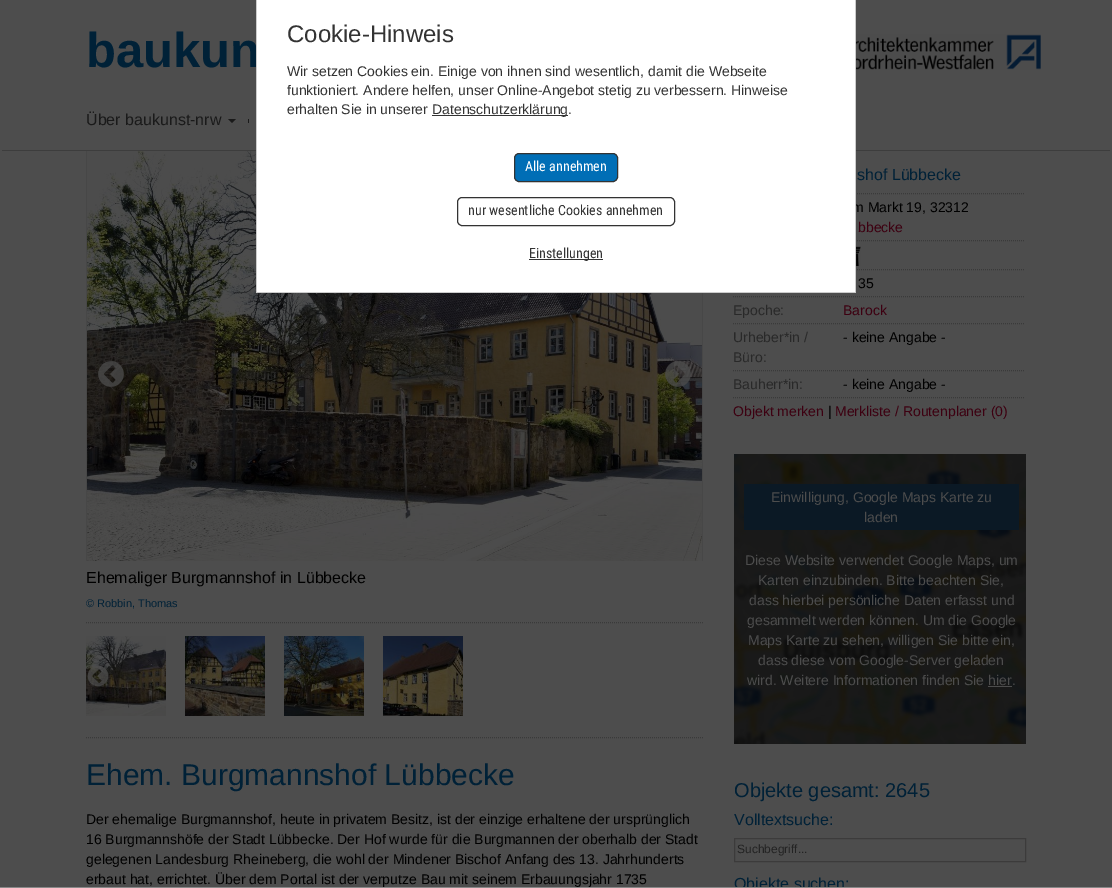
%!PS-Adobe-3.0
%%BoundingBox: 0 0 1112 888
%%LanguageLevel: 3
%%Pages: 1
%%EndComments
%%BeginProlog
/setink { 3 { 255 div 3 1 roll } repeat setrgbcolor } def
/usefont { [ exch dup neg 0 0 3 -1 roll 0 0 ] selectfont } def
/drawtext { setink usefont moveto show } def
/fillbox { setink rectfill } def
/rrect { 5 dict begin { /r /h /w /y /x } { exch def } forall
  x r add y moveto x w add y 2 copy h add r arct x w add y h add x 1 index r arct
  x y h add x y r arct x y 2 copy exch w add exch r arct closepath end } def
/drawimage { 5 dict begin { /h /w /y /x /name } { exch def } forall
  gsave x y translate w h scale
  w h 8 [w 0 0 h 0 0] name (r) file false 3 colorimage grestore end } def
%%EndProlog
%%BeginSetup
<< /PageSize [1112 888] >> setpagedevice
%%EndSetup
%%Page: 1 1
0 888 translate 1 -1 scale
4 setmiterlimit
0 0 1112 888 77 77 77 fillbox
(baukun) 86 67 /LiberationSans-Bold 49 0 33 55 drawtext
(assets/img1.rgb) 856 34 185 36 drawimage
(Objekte suchen:) 734 889 /LiberationSans-Regular 16 0 33 55 drawtext
0 887 1112 1 136 136 136 fillbox
2 150 1108 1 61 61 61 fillbox
58 58 58 setink
[1 1] 0 setdash
733 193.5 moveto 1025 193.5 lineto stroke
(m Markt 19, 32312) 852 212 /LiberationSans-Regular 14 0 0 0 drawtext
58 58 58 setink
733 240.5 moveto 1025 240.5 lineto stroke
733 269.5 moveto 1025 269.5 lineto stroke
86 151 617 410 71 71 71 fillbox
(assets/img5.rgb) 87 151 615 410 drawimage
257 0 598 292 255 255 255 fillbox
855 0 1 293 204 204 204 fillbox
256 292 600 1 204 204 204 fillbox
256 0 1 293 204 204 204 fillbox
(Cookie-Hinweis) 287 42 /LiberationSans-Regular 24 51 51 51 drawtext
(Wir setzen Cookies ein. Einige von ihnen sind wesentlich, damit die Webseite) 287 76 /LiberationSans-Regular 14 51 51 51 drawtext
(funktioniert. Andere helfen, unser Online-Angebot stetig zu verbessern. Hinweise) 287 95 /LiberationSans-Regular 14 51 51 51 drawtext
(erhalten Sie in unserer) 287 114 /LiberationSans-Regular 14 51 51 51 drawtext
432 115 136 1 51 51 51 fillbox
(Datenschutzerklärung.) 432 114 /LiberationSans-Regular 14 51 51 51 drawtext
0 110 182 setink
514.5 153.5 103 28 4.5 rrect gsave fill grestore
51 51 51 setink
[] 0 setdash
stroke
(Alle annehmen) 525 171 /RobotoCondensed-Regular 14 255 255 255 drawtext
51 51 51 setink
457.5 197.5 217 28 4.5 rrect stroke
(nur wesentliche Cookies annehmen) 468 215 /RobotoCondensed-Regular 14 51 51 51 drawtext
529 259 74 1 51 51 51 fillbox
(Einstellungen) 529 258 /RobotoCondensed-Regular 14 51 51 51 drawtext
248 119 1 4 26 26 26 fillbox
(Über baukunst-nrw) 86 125 /LiberationSans-Regular 16 26 26 26 drawtext
228 119 moveto 236 119 lineto 232 123 lineto closepath fill
(shof Lübbecke) 857 180 /LiberationSans-Regular 16 0 33 55 drawtext
(bbecke) 858 232 /LiberationSans-Regular 14 61 0 17 drawtext
(assets/img2.rgb) 856 246 5 20 drawimage
(35) 858 288 /LiberationSans-Regular 14 0 0 0 drawtext
58 58 58 setink
[1 1] 0 setdash
733 296.5 moveto 1025 296.5 lineto stroke
(Epoche:) 733 315 /LiberationSans-Regular 14 41 41 41 drawtext
(Barock) 843 315 /LiberationSans-Regular 14 61 0 17 drawtext
58 58 58 setink
733 323.5 moveto 1025 323.5 lineto stroke
(Urheber*in /) 733 342 /LiberationSans-Regular 14 41 41 41 drawtext
(Büro:) 733 362 /LiberationSans-Regular 14 41 41 41 drawtext
(- keine Angabe -) 843 342 /LiberationSans-Regular 14 0 0 0 drawtext
58 58 58 setink
733 370.5 moveto 1025 370.5 lineto stroke
(Bauherr*in:) 733 389 /LiberationSans-Regular 14 41 41 41 drawtext
(- keine Angabe -) 843 389 /LiberationSans-Regular 14 0 0 0 drawtext
58 58 58 setink
733 397.5 moveto 1025 397.5 lineto stroke
(Objekt merken) 733 416 /LiberationSans-Regular 14 61 0 17 drawtext
(|) 828 416 /LiberationSans-Regular 14 0 0 0 drawtext
(Merkliste / Routenplaner \(0\)) 835 416 /LiberationSans-Regular 14 61 0 17 drawtext
(assets/img3.rgb) 98 361 26 26 drawimage
(assets/img4.rgb) 665 361 26 26 drawimage
(Ehemaliger Burgmannshof in Lübbecke) 86 583 /LiberationSans-Regular 16 0 0 0 drawtext
(© Robbin, Thomas) 86 607 /LiberationSans-Regular 11 0 33 55 drawtext
58 58 58 setink
86 622.5 moveto 703 622.5 lineto stroke
(assets/img6.rgb) 86 636 80 80 drawimage
(assets/img7.rgb) 185 636 80 80 drawimage
(assets/img8.rgb) 284 636 80 80 drawimage
(assets/img9.rgb) 383 636 80 80 drawimage
(assets/img10.rgb) 87 665 22 22 drawimage
(assets/img11.rgb) 734 454 292 290 drawimage
744 484 275 46 11 25 37 fillbox
(Einwilligung, Google Maps Karte zu) 771 502 /LiberationSans-Regular 14 77 77 77 drawtext
(laden) 864 522 /LiberationSans-Regular 14 77 77 77 drawtext
(Diese Website verwendet Google Maps, um) 745 565 /LiberationSans-Regular 14 77 77 77 drawtext
(Karten einzubinden. Bitte beachten Sie,) 758 585 /LiberationSans-Regular 14 77 77 77 drawtext
(dass hierbei persönliche Daten erfasst und) 749 605 /LiberationSans-Regular 14 77 77 77 drawtext
(gesammelt werden können. Um die Google) 747 625 /LiberationSans-Regular 14 77 77 77 drawtext
(Maps Karte zu sehen, willigen Sie bitte ein,) 748 645 /LiberationSans-Regular 14 77 77 77 drawtext
(dass diese vom Google-Server geladen) 758 665 /LiberationSans-Regular 14 77 77 77 drawtext
(wird. Weitere Informationen finden Sie hier.) 747 685 /LiberationSans-Regular 14 77 77 77 drawtext
988 686 24 1 77 77 77 fillbox
(Objekte gesamt: 2645) 734 797 /LiberationSans-Regular 20 0 33 55 drawtext
(Volltextsuche:) 734 825 /LiberationSans-Regular 16 0 33 55 drawtext
60 59 59 setink
[] 0 setdash
734.5 838.5 291 23 rectstroke
(Suchbegriff...) 737 853 /LiberationSans-Regular 12 35 35 35 drawtext
58 58 58 setink
[1 1] 0 setdash
86 737.5 moveto 703 737.5 lineto stroke
(Ehem. Burgmannshof Lübbecke) 86 785 /LiberationSans-Regular 30 0 33 55 drawtext
(Der ehemalige Burgmannshof, heute in privatem Besitz, ist der einzige erhaltene der ursprünglich) 86 824 /LiberationSans-Regular 14 0 0 0 drawtext
(16 Burgmannshöfe der Stadt Lübbecke. Der Hof wurde für die Burgmannen der oberhalb der Stadt) 86 844 /LiberationSans-Regular 14 0 0 0 drawtext
(gelegenen Landesburg Rheineberg, die wohl der Mindener Bischof Anfang des 13. Jahrhunderts) 86 864 /LiberationSans-Regular 14 0 0 0 drawtext
(erbaut hat, errichtet. Über dem Portal ist der verputze Bau mit seinem Erbauungsjahr 1735) 86 884 /LiberationSans-Regular 14 0 0 0 drawtext
showpage
%%EOF
